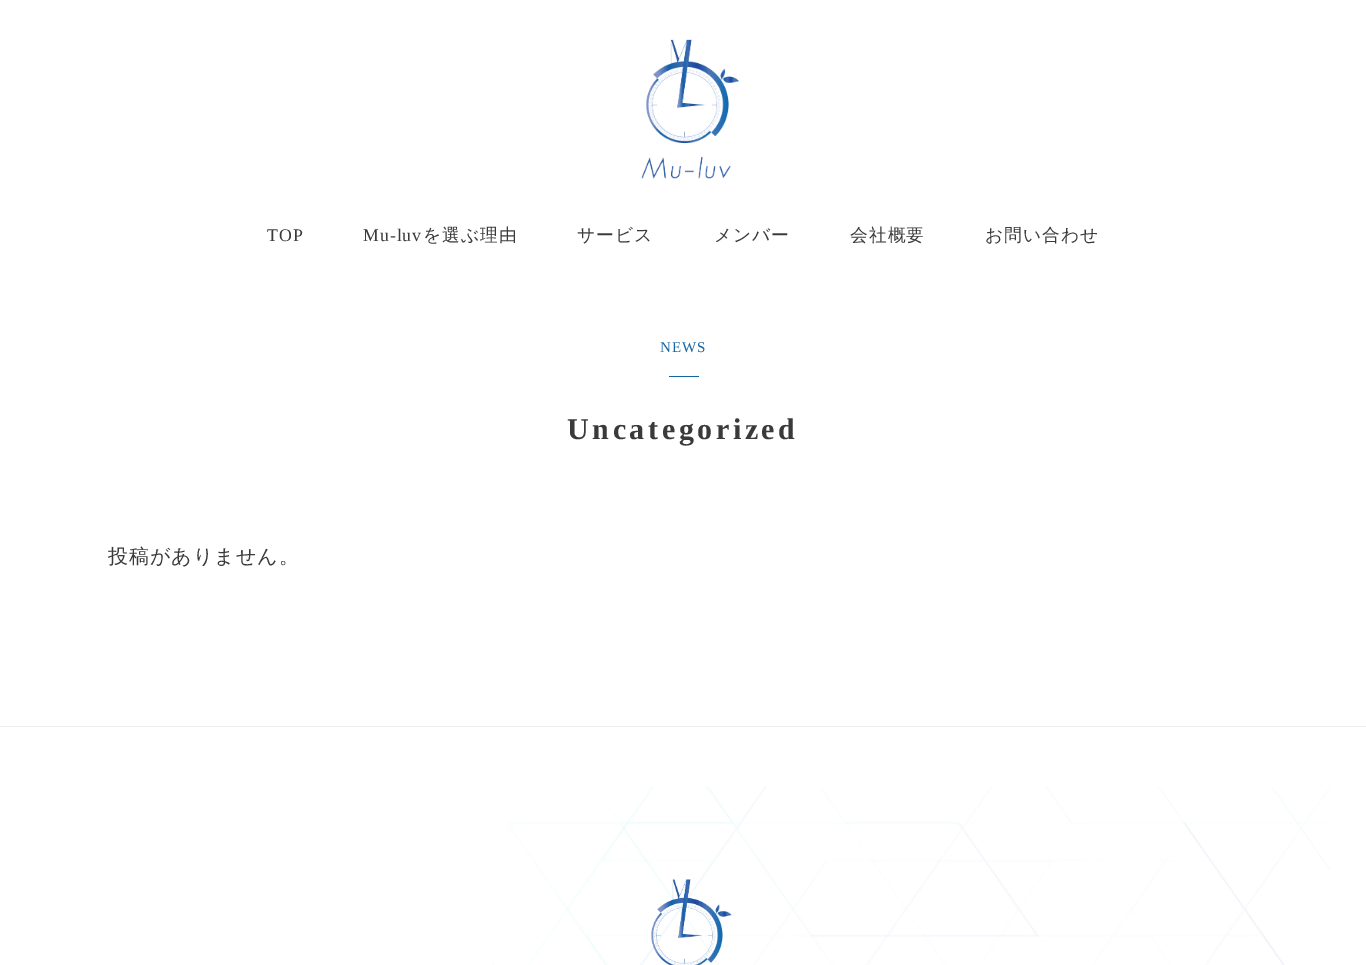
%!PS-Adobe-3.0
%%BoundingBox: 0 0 1366 965
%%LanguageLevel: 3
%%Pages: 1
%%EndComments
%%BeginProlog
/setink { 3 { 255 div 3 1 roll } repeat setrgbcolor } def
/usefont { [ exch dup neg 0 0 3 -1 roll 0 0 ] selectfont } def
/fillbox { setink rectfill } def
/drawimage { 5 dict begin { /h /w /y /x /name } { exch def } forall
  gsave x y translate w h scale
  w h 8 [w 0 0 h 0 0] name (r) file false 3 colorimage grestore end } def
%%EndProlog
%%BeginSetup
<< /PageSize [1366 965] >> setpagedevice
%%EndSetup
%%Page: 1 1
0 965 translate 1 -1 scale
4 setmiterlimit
0 0 1366 965 255 255 255 fillbox
(assets/img1.rgb) 641 39 99 140 drawimage
/LiberationSerif-Regular 17.75 usefont
58 58 58 setink
267 241 moveto 1 0 (TOP) ashow
363 241 moveto 1 0 (Mu-luv) ashow
/WenQuanYiZenHei-Medium 17.75 usefont
423 241 moveto 1 0 (を選ぶ理由) ashow
577 241 moveto 1 0 (サービス) ashow
714 241 moveto 1 0 (メンバー) ashow
850 241 moveto 1 0 (会社概要) ashow
985 241 moveto 1 0 (お問い合わせ) ashow
/LiberationSerif-Regular 15 usefont
21 101 163 setink
660 352 moveto 1 0 (NEWS) ashow
669 376 30 1 21 101 163 fillbox
/LiberationSerif-Bold 30 usefont
58 58 58 setink
567 439 moveto 3.6 0 (Uncategorized) ashow
/WenQuanYiZenHei-Medium 20 usefont
108 563 moveto 1 0 (投稿がありません。) ashow
0 726 1366 1 238 238 238 fillbox
(assets/img2.rgb) 492 786 838 179 drawimage
(assets/img3.rgb) 651 879 81 86 drawimage
showpage
%%EOF
